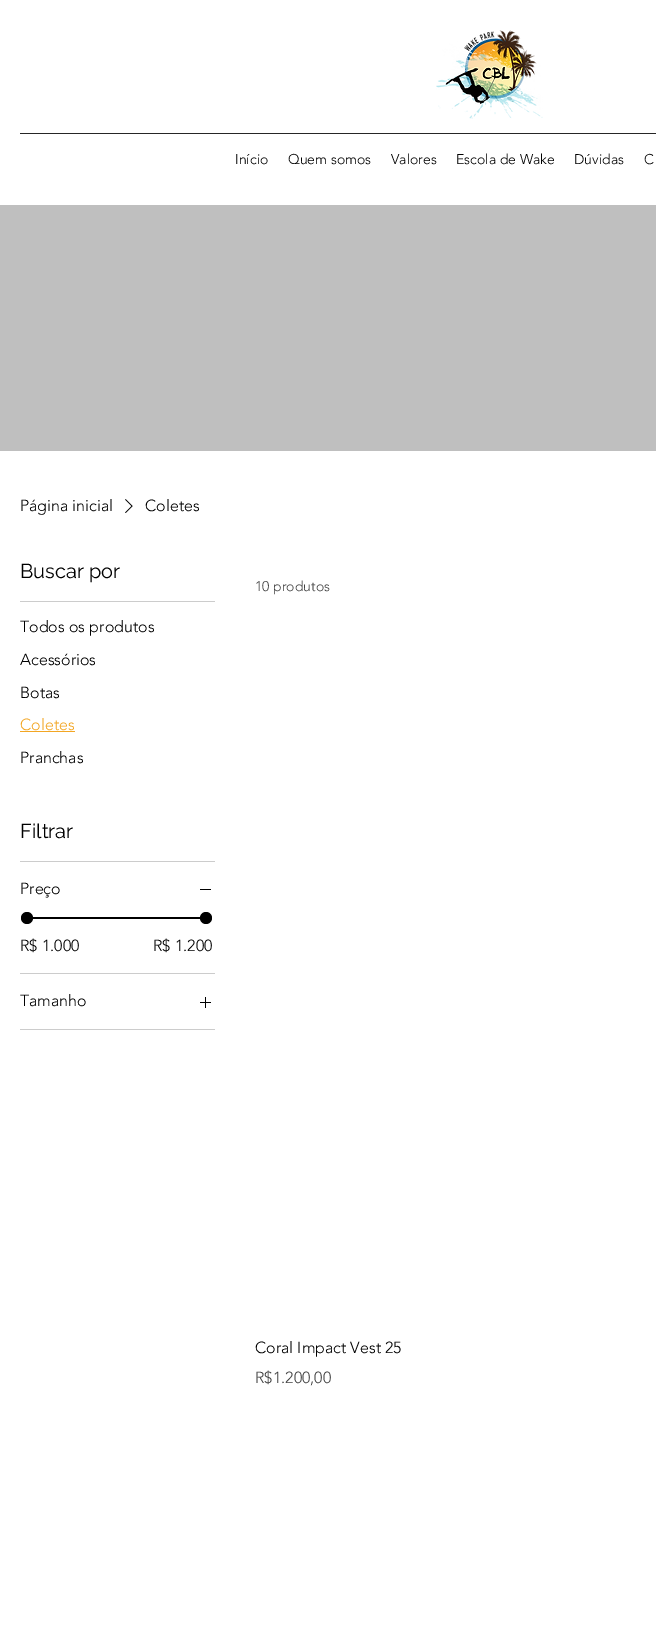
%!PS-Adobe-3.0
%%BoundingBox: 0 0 656 1629
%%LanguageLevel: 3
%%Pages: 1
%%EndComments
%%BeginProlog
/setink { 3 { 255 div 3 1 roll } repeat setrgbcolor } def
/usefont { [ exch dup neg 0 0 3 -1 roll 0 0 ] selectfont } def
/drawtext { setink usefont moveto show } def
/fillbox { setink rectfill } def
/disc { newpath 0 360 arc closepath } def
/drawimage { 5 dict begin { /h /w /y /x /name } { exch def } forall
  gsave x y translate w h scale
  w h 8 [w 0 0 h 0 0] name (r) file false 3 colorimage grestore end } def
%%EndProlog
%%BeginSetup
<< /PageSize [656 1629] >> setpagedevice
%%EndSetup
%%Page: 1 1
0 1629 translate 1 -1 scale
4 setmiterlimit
0 0 656 1629 255 255 255 fillbox
(assets/img1.rgb) 436 30 107 89 drawimage
20 133 636 1 38 38 38 fillbox
(Início) 235 164 /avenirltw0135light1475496-Light 14 0 0 0 drawtext
(Quem somos) 288 164 /avenirltw0135light1475496-Light 14 0 0 0 drawtext
(Valores) 391 164 /avenirltw0135light1475496-Light 14 0 0 0 drawtext
(Escola de Wake) 456 164 /avenirltw0135light1475496-Light 14 0 0 0 drawtext
(Dúvidas) 574 164 /avenirltw0135light1475496-Light 14 0 0 0 drawtext
(C) 644 164 /avenirltw0135light1475496-Light 14 0 0 0 drawtext
0 205 656 246 191 191 191 fillbox
(Página inicial) 20 511 /avenirltw0135light1475496-Light 16 0 0 0 drawtext
(assets/img2.rgb) 125 499 8 14 drawimage
(Coletes) 145 511 /avenirltw0135light1475496-Light 16 0 0 0 drawtext
20 601 195 1 204 204 204 fillbox
(Buscar por) 20 578 /Raleway-Regular 20 0 0 0 drawtext
(Todos os produtos) 20 632 /avenirltw0135light1475496-Light 16 0 0 0 drawtext
(Acessórios) 20 665 /avenirltw0135light1475496-Light 16 0 0 0 drawtext
(Botas) 20 698 /avenirltw0135light1475496-Light 16 0 0 0 drawtext
(Coletes) 20 730 /avenirltw0135light1475496-Light 16 243 166 35 drawtext
20 731 55 1 243 166 35 fillbox
(Pranchas) 20 763 /avenirltw0135light1475496-Light 16 0 0 0 drawtext
20 861 195 1 204 204 204 fillbox
(Filtrar) 20 838 /Raleway-Regular 20 0 0 0 drawtext
20 973 195 1 204 204 204 fillbox
(Preço) 20 894 /avenirltw0135light1475496-Light 16 0 0 0 drawtext
200 889 11 1 0 0 0 fillbox
26 917 179 2 0 0 0 fillbox
27 918 6 disc fill
206 918 6 disc fill
(R$ 1.000) 20 951 /avenirltw0135light1475496-Light 16 0 0 0 drawtext
(R$ 1.200) 153 951 /avenirltw0135light1475496-Light 16 0 0 0 drawtext
20 1029 195 1 204 204 204 fillbox
(Tamanho) 20 1006 /avenirltw0135light1475496-Light 16 0 0 0 drawtext
(assets/img3.rgb) 200 997 11 11 drawimage
(10 produtos) 255 591 /avenirltw0135light1475496-Light 14 64 64 64 drawtext
(Coral Impact Vest 25) 255 1353 /avenirltw0135light1475496-Light 16 0 0 0 drawtext
(R$1.200,00) 255 1383 /avenirltw0135light1475496-Light 16 64 64 64 drawtext
showpage
%%EOF
